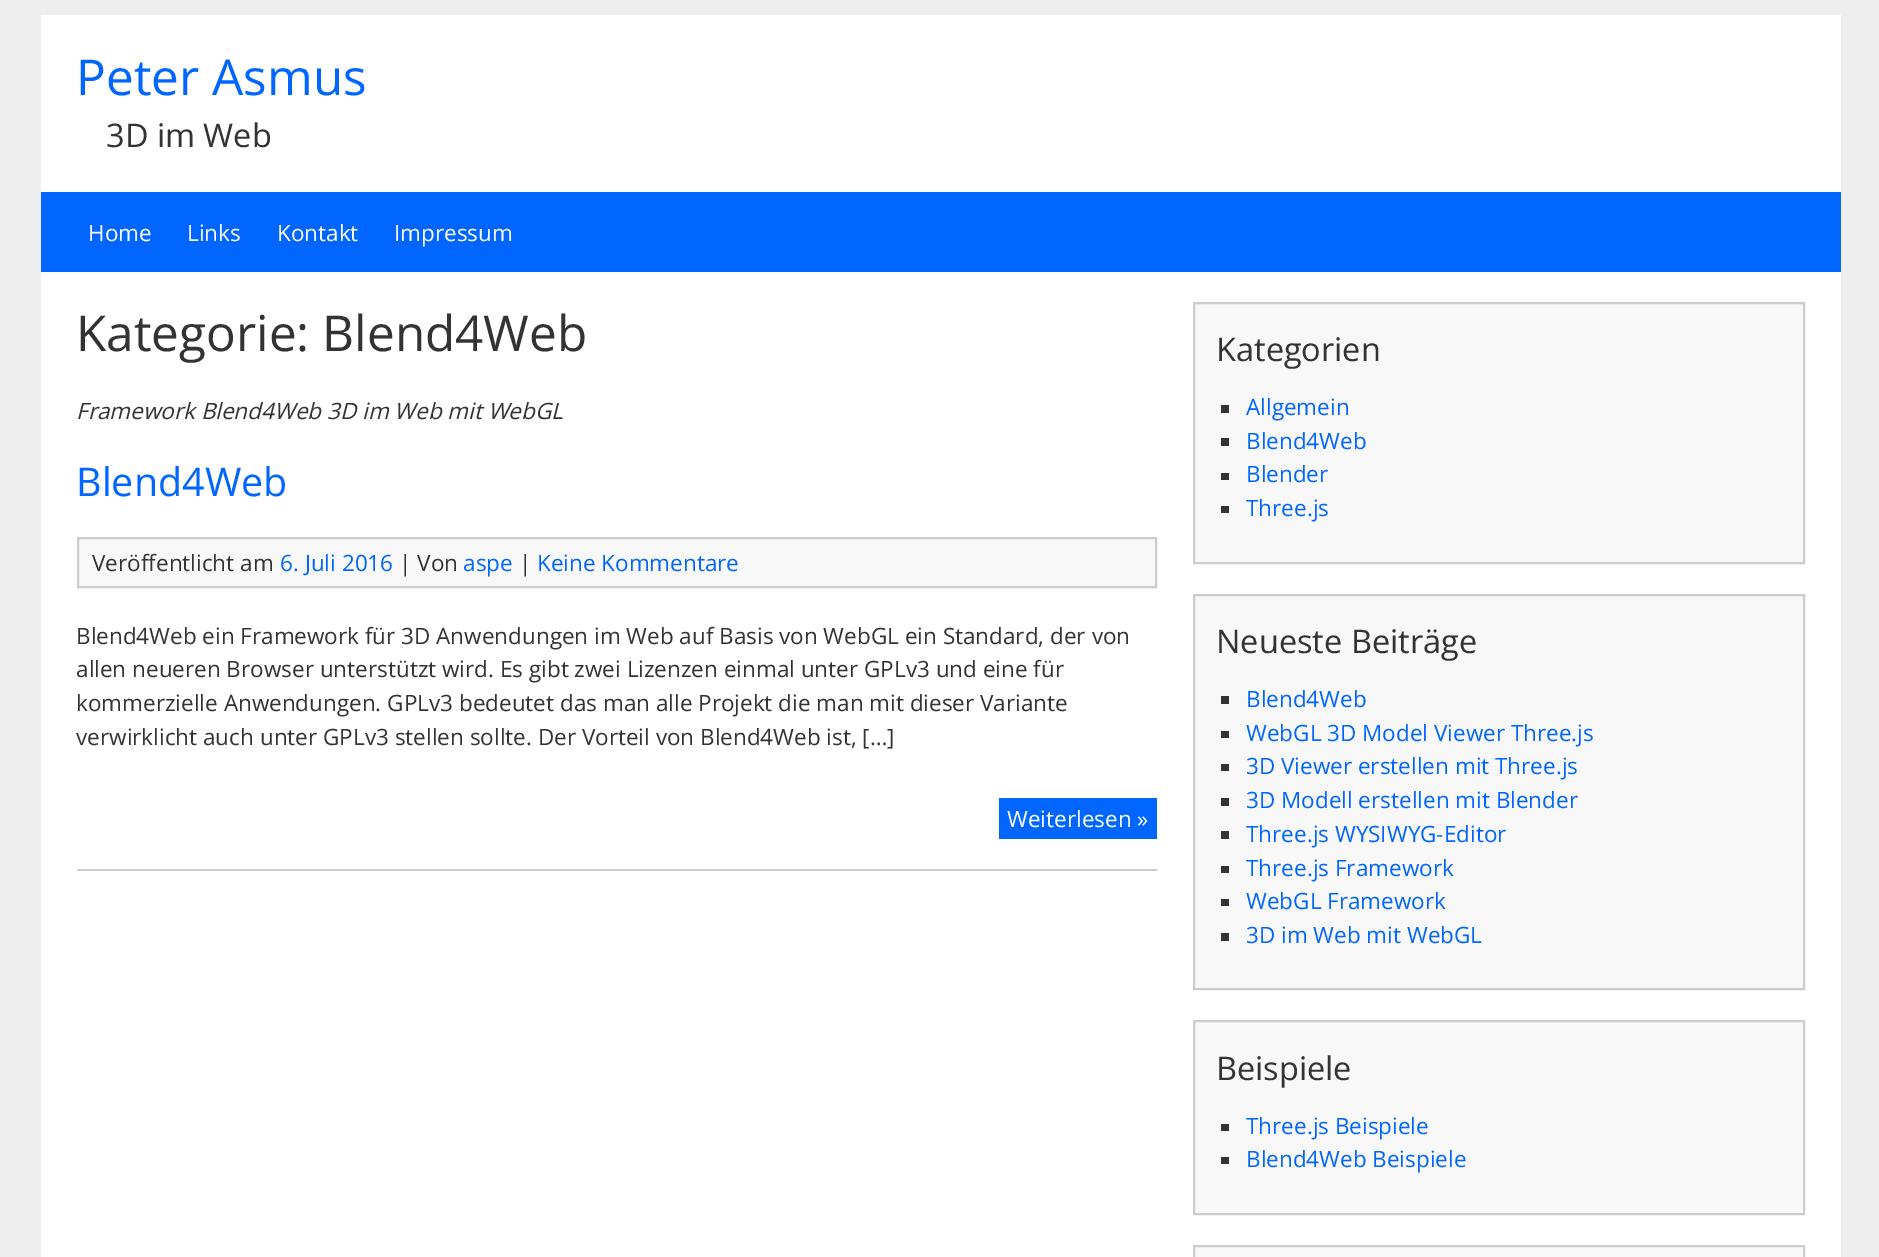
%!PS-Adobe-3.0
%%BoundingBox: 0 0 1879 1257
%%LanguageLevel: 3
%%Pages: 1
%%EndComments
%%BeginProlog
/setink { 3 { 255 div 3 1 roll } repeat setrgbcolor } def
/usefont { [ exch dup neg 0 0 3 -1 roll 0 0 ] selectfont } def
/drawtext { setink usefont moveto show } def
/fillbox { setink rectfill } def
%%EndProlog
%%BeginSetup
<< /PageSize [1879 1257] >> setpagedevice
%%EndSetup
%%Page: 1 1
0 1257 translate 1 -1 scale
4 setmiterlimit
0 0 1879 1257 238 238 238 fillbox
41 15 1800 1242 255 255 255 fillbox
(Peter Asmus) 76 95 /OpenSans-Regular 49.5 0 102 255 drawtext
(3D im Web) 106 147 /OpenSans-Regular 32.5 51 51 51 drawtext
41 192 1800 80 0 102 255 fillbox
(Home) 88 241 /OpenSans-Regular 22.5 255 255 255 drawtext
(Links) 187 241 /OpenSans-Regular 22.5 255 255 255 drawtext
(Kontakt) 277 241 /OpenSans-Regular 22.5 255 255 255 drawtext
(Impressum) 394 241 /OpenSans-Regular 22.5 255 255 255 drawtext
(Kategorie: Blend4Web) 76 351 /OpenSans-Regular 49.5 51 51 51 drawtext
(Framework Blend4Web 3D im Web mit WebGL) 76 419 /OpenSans-Italic 22.5 51 51 51 drawtext
77 869 1080 2 204 204 204 fillbox
(Blend4Web) 76 496 /OpenSans-Regular 39.5 0 102 255 drawtext
248 248 248 setink
78 538 moveto 1156 538 lineto 1156 587 lineto 78 587 lineto closepath gsave fill grestore
204 204 204 setink
2 setlinewidth
stroke
(Veröffentlicht am) 92 571 /OpenSans-Regular 22.5 51 51 51 drawtext
(6. Juli 2016) 280 571 /OpenSans-Regular 22.5 0 102 255 drawtext
(| Von) 399 571 /OpenSans-Regular 22.5 51 51 51 drawtext
(aspe) 463 571 /OpenSans-Regular 22.5 0 102 255 drawtext
(|) 519 571 /OpenSans-Regular 22.5 51 51 51 drawtext
(Keine Kommentare) 537 571 /OpenSans-Regular 22.5 0 102 255 drawtext
(Blend4Web ein Framework für 3D Anwendungen im Web auf Basis von WebGL ein Standard, der von) 76 644 /OpenSans-Regular 22.5 51 51 51 drawtext
(allen neueren Browser unterstützt wird. Es gibt zwei Lizenzen einmal unter GPLv3 und eine für) 76 677 /OpenSans-Regular 22.5 51 51 51 drawtext
(kommerzielle Anwendungen. GPLv3 bedeutet das man alle Projekt die man mit dieser Variante) 76 711 /OpenSans-Regular 22.5 51 51 51 drawtext
(verwirklicht auch unter GPLv3 stellen sollte. Der Vorteil von Blend4Web ist, […]) 76 745 /OpenSans-Regular 22.5 51 51 51 drawtext
999 798 158 41 0 102 255 fillbox
(Weiterlesen ») 1007 827 /OpenSans-Regular 22.5 255 255 255 drawtext
248 248 248 setink
1194 303 moveto 1804 303 lineto 1804 563 lineto 1194 563 lineto closepath gsave fill grestore
204 204 204 setink
stroke
(Kategorien) 1216 361 /OpenSans-Regular 32.5 51 51 51 drawtext
1221 405 8 8 51 51 51 fillbox
(Allgemein) 1246 415 /OpenSans-Regular 22.5 0 102 255 drawtext
1221 438 8 8 51 51 51 fillbox
(Blend4Web) 1246 449 /OpenSans-Regular 22.5 0 102 255 drawtext
1221 473 8 7 51 51 51 fillbox
(Blender) 1246 482 /OpenSans-Regular 22.5 0 102 255 drawtext
1221 506 8 7 51 51 51 fillbox
(Three.js) 1246 516 /OpenSans-Regular 22.5 0 102 255 drawtext
248 248 248 setink
1194 595 moveto 1804 595 lineto 1804 989 lineto 1194 989 lineto closepath gsave fill grestore
204 204 204 setink
stroke
(Neueste Beiträge) 1216 653 /OpenSans-Regular 32.5 51 51 51 drawtext
1221 696 8 8 51 51 51 fillbox
(Blend4Web) 1246 707 /OpenSans-Regular 22.5 0 102 255 drawtext
1221 731 8 7 51 51 51 fillbox
(WebGL 3D Model Viewer Three.js) 1246 741 /OpenSans-Regular 22.5 0 102 255 drawtext
1221 764 8 7 51 51 51 fillbox
(3D Viewer erstellen mit Three.js) 1246 774 /OpenSans-Regular 22.5 0 102 255 drawtext
1221 798 8 8 51 51 51 fillbox
(3D Modell erstellen mit Blender) 1246 808 /OpenSans-Regular 22.5 0 102 255 drawtext
1221 831 8 8 51 51 51 fillbox
(Three.js WYSIWYG-Editor) 1246 842 /OpenSans-Regular 22.5 0 102 255 drawtext
1221 866 8 7 51 51 51 fillbox
(Three.js Framework) 1246 876 /OpenSans-Regular 22.5 0 102 255 drawtext
1221 899 8 7 51 51 51 fillbox
(WebGL Framework) 1246 909 /OpenSans-Regular 22.5 0 102 255 drawtext
1221 933 8 8 51 51 51 fillbox
(3D im Web mit WebGL) 1246 943 /OpenSans-Regular 22.5 0 102 255 drawtext
248 248 248 setink
1194 1021 moveto 1804 1021 lineto 1804 1214 lineto 1194 1214 lineto closepath gsave fill grestore
204 204 204 setink
stroke
(Beispiele) 1216 1080 /OpenSans-Regular 32.5 51 51 51 drawtext
1221 1124 8 7 51 51 51 fillbox
(Three.js Beispiele) 1246 1134 /OpenSans-Regular 22.5 0 102 255 drawtext
1221 1157 8 7 51 51 51 fillbox
(Blend4Web Beispiele) 1246 1167 /OpenSans-Regular 22.5 0 102 255 drawtext
248 248 248 setink
1194 1246 moveto 1804 1246 lineto 1804 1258 lineto 1194 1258 lineto closepath gsave fill grestore
204 204 204 setink
stroke
showpage
%%EOF
